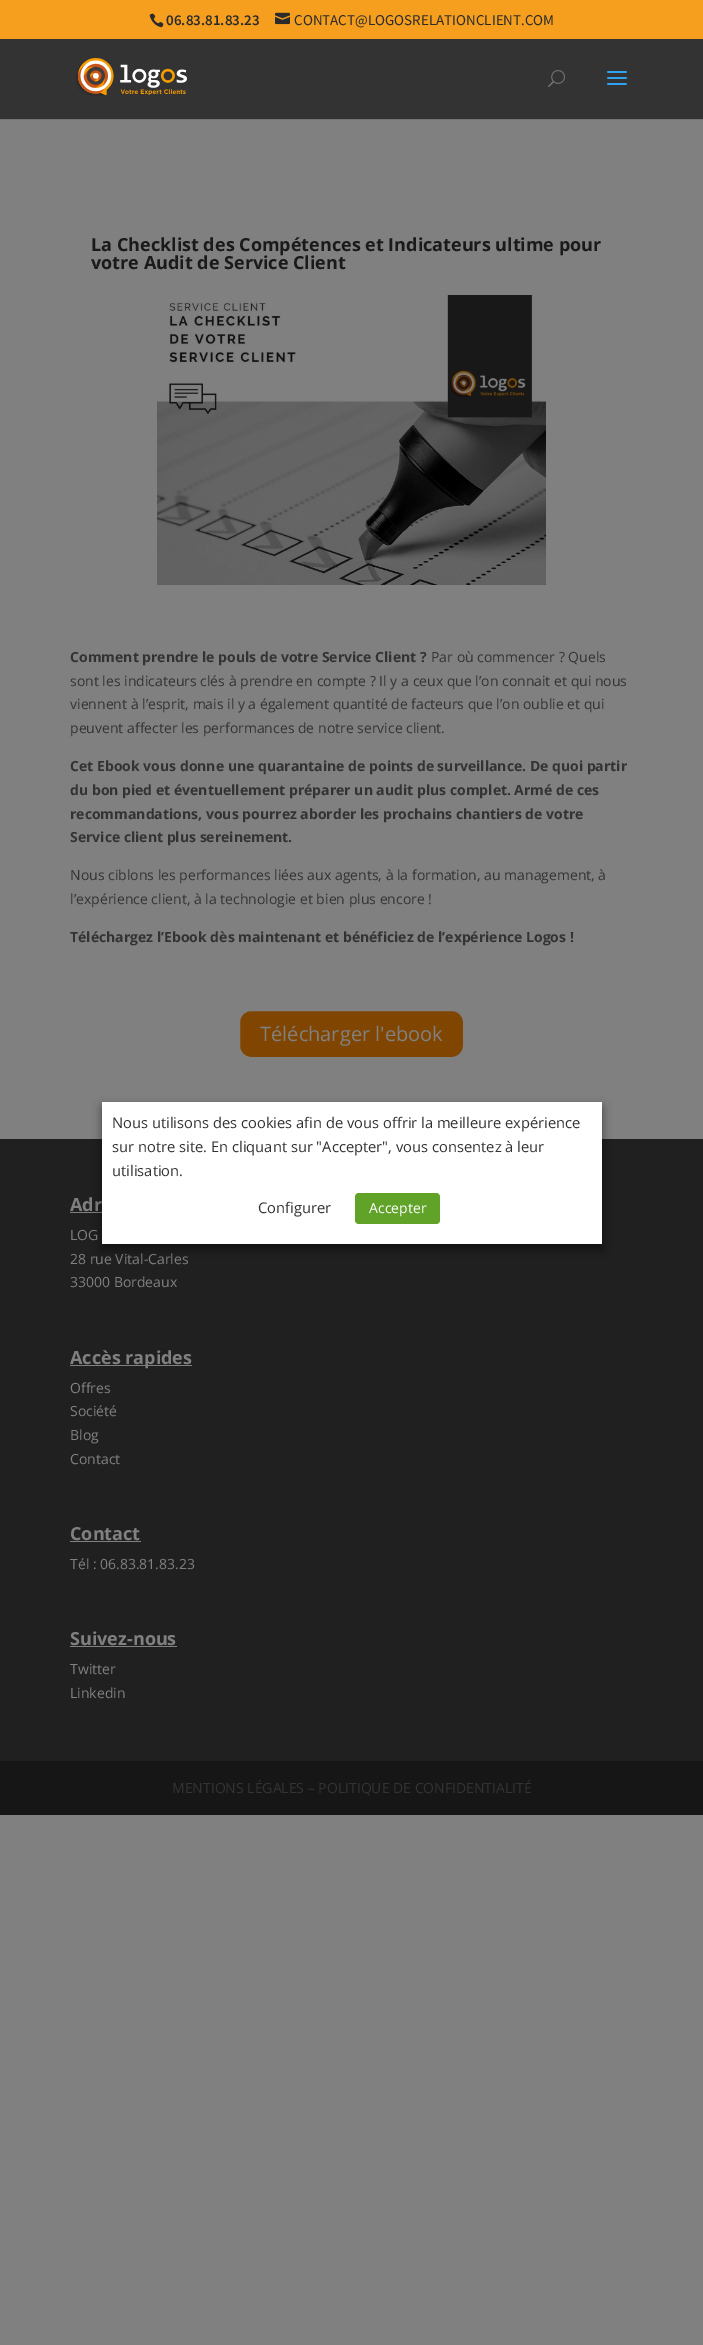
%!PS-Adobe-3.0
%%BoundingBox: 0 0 703 2345
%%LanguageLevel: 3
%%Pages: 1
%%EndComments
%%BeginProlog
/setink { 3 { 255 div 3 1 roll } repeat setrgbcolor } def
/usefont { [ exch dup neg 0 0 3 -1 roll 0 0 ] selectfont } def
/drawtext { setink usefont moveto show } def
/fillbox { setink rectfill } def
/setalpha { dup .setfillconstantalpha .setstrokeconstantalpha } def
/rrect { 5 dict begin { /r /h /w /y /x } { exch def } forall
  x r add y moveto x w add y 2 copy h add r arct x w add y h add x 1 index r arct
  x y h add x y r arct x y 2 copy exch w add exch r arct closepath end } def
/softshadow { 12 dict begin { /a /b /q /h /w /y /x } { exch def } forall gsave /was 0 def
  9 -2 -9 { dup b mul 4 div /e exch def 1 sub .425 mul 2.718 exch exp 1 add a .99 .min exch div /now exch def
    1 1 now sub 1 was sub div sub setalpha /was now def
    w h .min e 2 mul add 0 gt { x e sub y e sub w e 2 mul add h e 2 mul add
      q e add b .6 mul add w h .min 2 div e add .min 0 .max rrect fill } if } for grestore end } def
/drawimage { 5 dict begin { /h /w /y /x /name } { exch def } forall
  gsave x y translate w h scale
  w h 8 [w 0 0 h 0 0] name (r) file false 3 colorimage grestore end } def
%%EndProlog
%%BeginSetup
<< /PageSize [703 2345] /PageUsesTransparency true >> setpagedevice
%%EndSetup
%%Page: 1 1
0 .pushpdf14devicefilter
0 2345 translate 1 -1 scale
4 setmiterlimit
0 0 703 2345 128 128 128 fillbox
0 0 703 39 246 158 29 fillbox
(assets/img1.rgb) 149 13 15 15 drawimage
(06.83.81.83.23) 166 25 /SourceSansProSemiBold-SemiBold 15 43 43 43 drawtext
(assets/img2.rgb) 275 12 15 13 drawimage
(CONTACT@LOGOSRELATIONCLIENT.COM) 294 25 /SourceSansPro-Regular 15 43 43 43 drawtext
0 119 703 1 115 115 115 fillbox
0 39 703 80 51 51 51 fillbox
(assets/img3.rgb) 76 58 111 39 drawimage
(assets/img4.rgb) 548 70 17 17 drawimage
(assets/img5.rgb) 607 71 20 14 drawimage
(La Checklist des Compétences et Indicateurs ultime pour) 91 251 /OpenSans-Bold 18 26 26 26 drawtext
(votre Audit de Service Client) 91 269 /OpenSans-Bold 18 26 26 26 drawtext
(assets/img6.rgb) 157 295 389 290 drawimage
(Comment prendre le pouls de votre Service Client ?) 70 662 /OpenSans-Bold 14 51 51 51 drawtext
(Par où commencer ? Quels) 431 662 /OpenSans-Regular 14 51 51 51 drawtext
(sont les indicateurs clés à prendre en compte ? Il y a ceux que l’on connait et qui nous) 70 686 /OpenSans-Regular 14 51 51 51 drawtext
(viennent à l’esprit, mais il y a également quantité de facteurs que l’on oublie et qui) 70 709 /OpenSans-Regular 14 51 51 51 drawtext
(peuvent affecter les performances de notre service client.) 70 733 /OpenSans-Regular 14 51 51 51 drawtext
(Cet Ebook vous donne une quarantaine de points de surveillance. De quoi partir) 70 771 /OpenSans-Bold 14 51 51 51 drawtext
(du bon pied et éventuellement préparer un audit plus complet. Armé de ces) 70 795 /OpenSans-Bold 14 51 51 51 drawtext
(recommandations, vous pourrez aborder les prochains chantiers de votre) 70 819 /OpenSans-Bold 14 51 51 51 drawtext
(Service client plus sereinement.) 70 842 /OpenSans-Bold 14 51 51 51 drawtext
(Nous ciblons les performances liées aux agents, à la formation, au management, à) 70 880 /OpenSans-Regular 14 51 51 51 drawtext
(l’expérience client, à la technologie et bien plus encore !) 70 904 /OpenSans-Regular 14 51 51 51 drawtext
(Téléchargez l’Ebook dès maintenant et bénéficiez de l’expérience Logos !) 70 942 /OpenSans-Bold 14 51 51 51 drawtext
128 70 0 setink
239 1010 225 48 12 rrect gsave fill grestore
128 128 128 setink
2 setlinewidth
stroke
(Télécharger l'ebook) 260 1041 /OpenSans-Regular 20 128 128 128 drawtext
0 1139 703 622 32 32 32 fillbox
(Adr) 70 1211 /OpenSans-Bold 18 128 128 128 drawtext
70 1212 32 1 128 128 128 fillbox
(LOG) 70 1240 /OpenSans-Regular 14 128 128 128 drawtext
(28 rue Vital-Carles) 70 1264 /OpenSans-Regular 14 128 128 128 drawtext
(33000 Bordeaux) 70 1287 /OpenSans-Regular 14 128 128 128 drawtext
70 1365 122 1 128 128 128 fillbox
(Accès rapides) 70 1364 /OpenSans-Bold 18 128 128 128 drawtext
(Offres) 70 1393 /OpenSans-Regular 14 128 128 128 drawtext
(Société) 70 1416 /OpenSans-Regular 14 128 128 128 drawtext
(Blog) 70 1440 /OpenSans-Regular 14 128 128 128 drawtext
(Contact) 70 1464 /OpenSans-Regular 14 128 128 128 drawtext
(Contact) 70 1540 /OpenSans-Bold 18 128 128 128 drawtext
70 1541 71 1 128 128 128 fillbox
(Tél : 06.83.81.83.23) 70 1569 /OpenSans-Regular 14 128 128 128 drawtext
(Suivez-nous) 70 1645 /OpenSans-Bold 18 128 128 128 drawtext
70 1646 107 1 128 128 128 fillbox
(Twitter) 70 1674 /OpenSans-Regular 14 128 128 128 drawtext
(Linkedin) 70 1698 /OpenSans-Regular 14 128 128 128 drawtext
0 1761 703 54 22 22 22 fillbox
(MENTIONS LÉGALES – POLITIQUE DE CONFIDENTIALITÉ) 172 1793 /OpenSans-Regular 14 51 51 51 drawtext
0 0 0 setink
102 1107 500 142 0 5 0.5 softshadow
102 1102 500 142 255 255 255 fillbox
(Nous utilisons des cookies afin de vous offrir la meilleure expérience) 112 1128 /OpenSans-Regular 14.7 51 51 51 drawtext
(sur notre site. En cliquant sur "Accepter", vous consentez à leur) 112 1152 /OpenSans-Regular 14.7 51 51 51 drawtext
(utilisation.) 112 1176 /OpenSans-Regular 14.7 51 51 51 drawtext
(Configurer) 258 1213 /OpenSans-Regular 14.7 51 51 51 drawtext
97 162 41 setink
355 1193 85 31 4 rrect fill
(Accepter) 369 1213 /OpenSans-Regular 14 255 255 255 drawtext
.poppdf14devicefilter showpage
%%EOF
